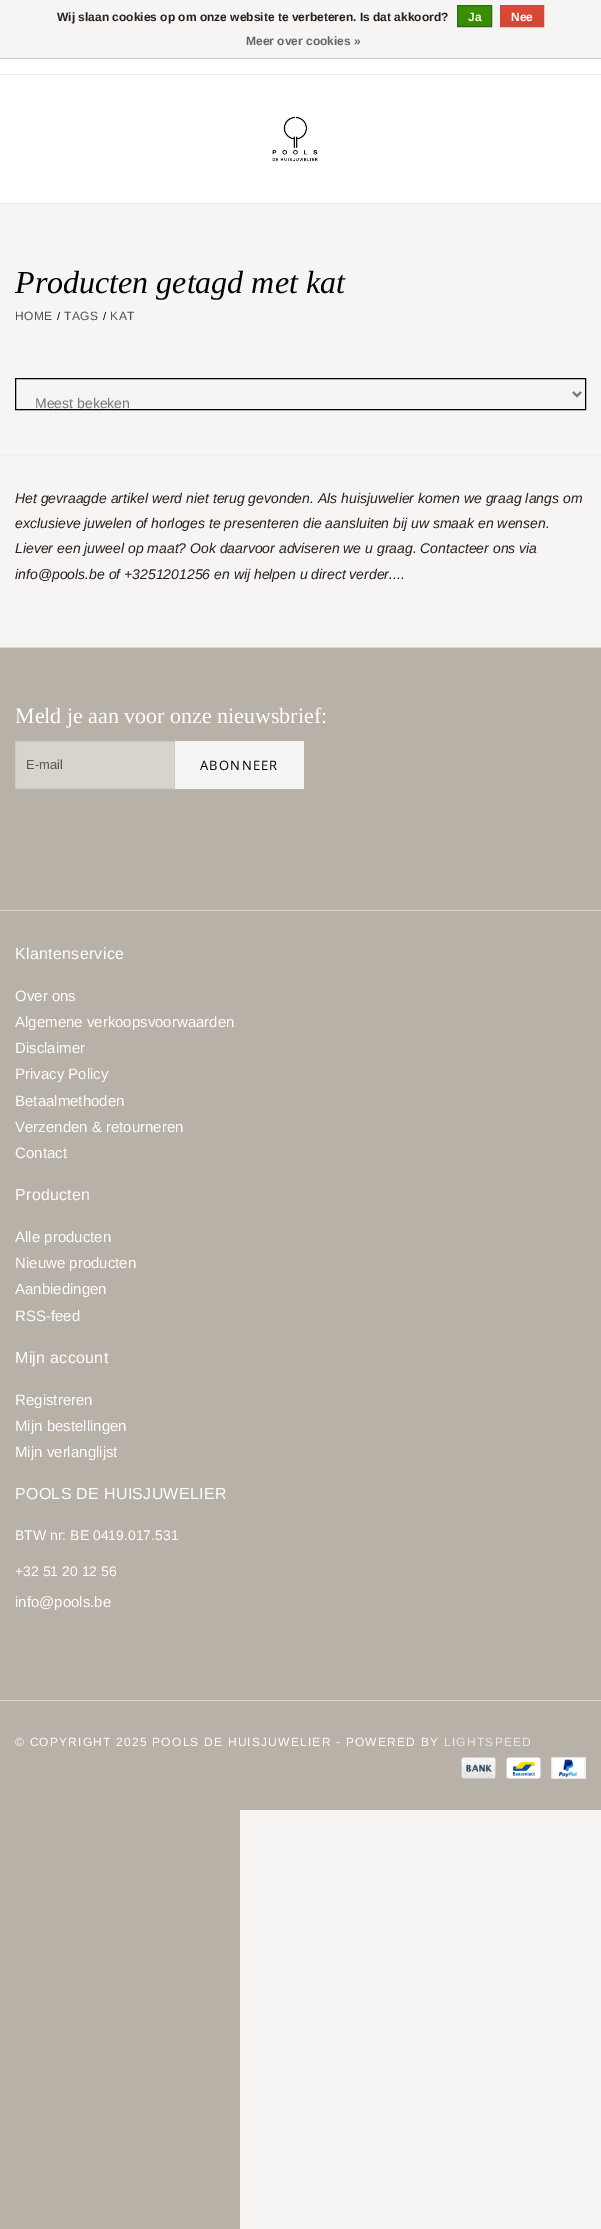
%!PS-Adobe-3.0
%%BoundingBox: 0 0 601 2229
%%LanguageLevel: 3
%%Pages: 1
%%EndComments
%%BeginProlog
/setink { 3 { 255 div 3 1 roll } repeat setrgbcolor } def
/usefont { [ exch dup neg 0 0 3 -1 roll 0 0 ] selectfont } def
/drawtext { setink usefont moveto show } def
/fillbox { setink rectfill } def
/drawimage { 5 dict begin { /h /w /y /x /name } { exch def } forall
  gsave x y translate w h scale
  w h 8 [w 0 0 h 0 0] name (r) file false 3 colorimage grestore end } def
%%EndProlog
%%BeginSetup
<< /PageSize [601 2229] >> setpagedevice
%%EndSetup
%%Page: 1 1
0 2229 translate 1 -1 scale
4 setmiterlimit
0 0 601 2229 247 245 243 fillbox
0 58 601 1 204 204 204 fillbox
(Wij slaan cookies op om onze website te verbeteren. Is dat akkoord?) 57 21 /LiberationSans-Bold 12 38 32 30 drawtext
gsave 458 6 moveto 491 6 lineto 491 26 lineto 458 26 lineto closepath clip newpath
<< /ShadingType 2 /ColorSpace /DeviceRGB /Coords [475 6 475 26] /Extend [true true] /Function << /FunctionType 2 /Domain [0 1] /C0 [0.235 0.576 0] /C1 [0.224 0.541 0] /N 1 >> >> shfill grestore
41 105 29 setink
457.5 5.5 34 21 rectstroke
(Ja) 468 21 /LiberationSans-Bold 12 255 255 255 drawtext
gsave 501 6 moveto 543 6 lineto 543 26 lineto 501 26 lineto closepath clip newpath
<< /ShadingType 2 /ColorSpace /DeviceRGB /Coords [522 6 522 26] /Extend [true true] /Function << /FunctionType 2 /Domain [0 1] /C0 [0.863 0.29 0.22] /C1 [0.82 0.282 0.212] /N 1 >> >> shfill grestore
209 72 54 setink
500.5 5.5 43 21 rectstroke
(Nee) 511 21 /LiberationSans-Bold 12 255 255 255 drawtext
(Meer over cookies ») 246 45 /LiberationSans-Bold 12 102 102 102 drawtext
0 59 601 15 255 255 255 fillbox
0 74 601 1 237 237 237 fillbox
0 75 601 128 255 255 255 fillbox
0 203 601 1 234 234 234 fillbox
(assets/img1.rgb) 272 116 46 46 drawimage
0 1810 240 419 183 177 167 fillbox
(Producten getagd met kat) 15 293 /LiberationSerif-Italic 32 0 0 0 drawtext
/LiberationSans-Regular 12 usefont
80 80 80 setink
15 320 moveto 0.5 0 (HOME) ashow
/LiberationSans-Regular 11 usefont
0 0 0 setink
57 320 moveto 0.5 0 (/) ashow
/LiberationSans-Regular 12 usefont
80 80 80 setink
64 320 moveto 0.5 0 (TAGS) ashow
/LiberationSans-Regular 11 usefont
0 0 0 setink
103 320 moveto 0.5 0 (/) ashow
/LiberationSans-Regular 12 usefont
80 80 80 setink
110 320 moveto 0.5 0 (KAT) ashow
0 455 601 1 240 240 240 fillbox
0 0 0 setink
15.5 378.5 570 31 rectstroke
119 119 119 setink
2 setlinewidth
573 392 moveto 577 396 lineto 581 392 lineto stroke
(Meest bekeken) 35 408 /LiberationSans-Regular 14 119 119 119 drawtext
(Het gevraagde artikel werd niet terug gevonden. Als huisjuwelier komen we graag langs om) 15 503 /LiberationSans-Italic 14 38 32 30 drawtext
(exclusieve juwelen of horloges te presenteren die aansluiten bij uw smaak en wensen.) 15 528 /LiberationSans-Italic 14 38 32 30 drawtext
(Liever een juweel op maat? Ook daarvoor adviseren we u graag. Contacteer ons via) 15 553 /LiberationSans-Italic 14 38 32 30 drawtext
(info@pools.be of +3251201256 en wij helpen u direct verder....) 15 579 /LiberationSans-Italic 14 38 32 30 drawtext
0 648 601 1162 183 177 167 fillbox
0 647 601 1 219 216 211 fillbox
(Meld je aan voor onze nieuwsbrief:) 15 723 /LiberationSerif-Regular 22 255 255 255 drawtext
215 211 205 setink
15.5 741.5 moveto 174.5 741.5 lineto 174.5 788.5 lineto 15.5 788.5 lineto closepath gsave fill grestore
204 201 195 setink
1 setlinewidth
stroke
(E-mail) 26 769 /LiberationSans-Regular 13 92 89 84 drawtext
175 741 129 48 247 245 243 fillbox
/OpenSans-Regular 13 usefont
0 0 0 setink
200 770 moveto 1.25 0 (ABONNEER) ashow
0 910 601 1 219 216 211 fillbox
/LiberationSans-Regular 16 usefont
255 255 255 setink
15 959 moveto 0.3 0 (Klantenservice) ashow
(Over ons) 15 1001 /LiberationSans-Regular 15 255 255 255 drawtext
(Algemene verkoopsvoorwaarden) 15 1027 /LiberationSans-Regular 15 255 255 255 drawtext
(Disclaimer) 15 1053 /LiberationSans-Regular 15 255 255 255 drawtext
(Privacy Policy) 15 1079 /LiberationSans-Regular 15 255 255 255 drawtext
(Betaalmethoden) 15 1106 /LiberationSans-Regular 15 255 255 255 drawtext
(Verzenden & retourneren) 15 1132 /LiberationSans-Regular 15 255 255 255 drawtext
(Contact) 15 1158 /LiberationSans-Regular 15 255 255 255 drawtext
/LiberationSans-Regular 16 usefont
15 1200 moveto 0.3 0 (Producten) ashow
(Alle producten) 15 1242 /LiberationSans-Regular 15 255 255 255 drawtext
(Nieuwe producten) 15 1268 /LiberationSans-Regular 15 255 255 255 drawtext
(Aanbiedingen) 15 1294 /LiberationSans-Regular 15 255 255 255 drawtext
(RSS-feed) 15 1321 /LiberationSans-Regular 15 255 255 255 drawtext
/LiberationSans-Regular 16 usefont
15 1363 moveto 0.3 0 (Mijn account) ashow
(Registreren) 15 1405 /LiberationSans-Regular 15 255 255 255 drawtext
(Mijn bestellingen) 15 1431 /LiberationSans-Regular 15 255 255 255 drawtext
(Mijn verlanglijst) 15 1457 /LiberationSans-Regular 15 255 255 255 drawtext
/LiberationSans-Regular 16 usefont
15 1499 moveto 0.3 0 (POOLS DE HUISJUWELIER) ashow
(BTW nr: BE 0419.017.531) 15 1540 /LiberationSans-Regular 14 255 255 255 drawtext
(+32 51 20 12 56) 15 1576 /LiberationSans-Regular 14 255 255 255 drawtext
(info@pools.be) 15 1607 /LiberationSans-Regular 15 255 255 255 drawtext
0 1700 601 1 219 216 211 fillbox
/LiberationSans-Regular 12 usefont
255 255 255 setink
15 1746 moveto 1.2 0 (© COPYRIGHT 2025 POOLS DE HUISJUWELIER - POWERED BY) ashow
233 232 229 setink
444 1746 moveto 1.2 0 (LIGHTSPEED) ashow
(assets/img2.rgb) 461 1757 35 22 drawimage
(assets/img3.rgb) 506 1757 35 22 drawimage
(assets/img4.rgb) 551 1757 35 22 drawimage
showpage
%%EOF
